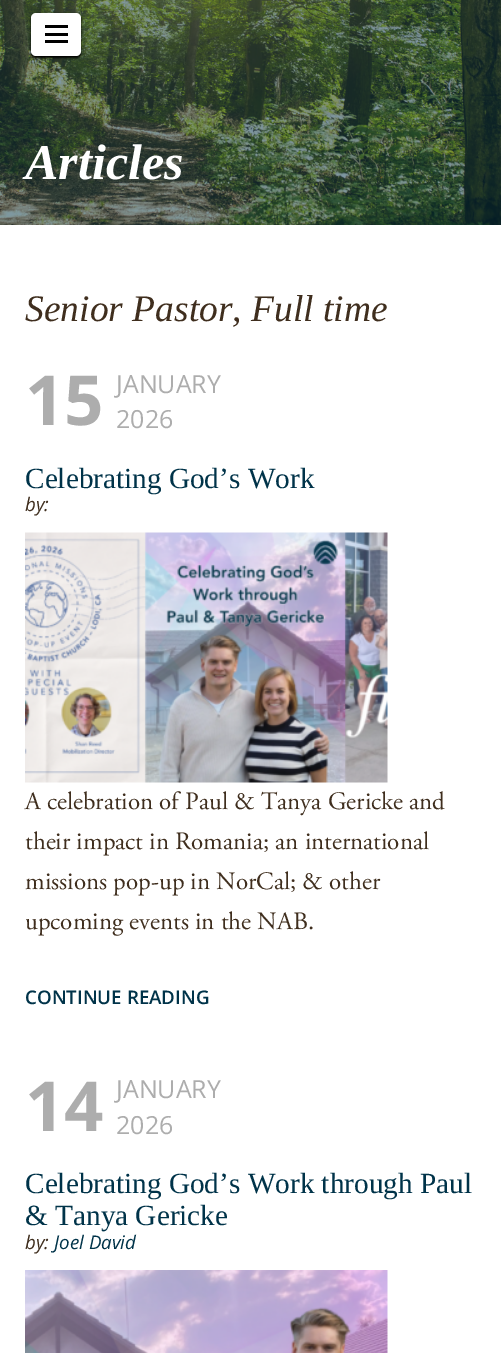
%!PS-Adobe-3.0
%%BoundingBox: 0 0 501 1353
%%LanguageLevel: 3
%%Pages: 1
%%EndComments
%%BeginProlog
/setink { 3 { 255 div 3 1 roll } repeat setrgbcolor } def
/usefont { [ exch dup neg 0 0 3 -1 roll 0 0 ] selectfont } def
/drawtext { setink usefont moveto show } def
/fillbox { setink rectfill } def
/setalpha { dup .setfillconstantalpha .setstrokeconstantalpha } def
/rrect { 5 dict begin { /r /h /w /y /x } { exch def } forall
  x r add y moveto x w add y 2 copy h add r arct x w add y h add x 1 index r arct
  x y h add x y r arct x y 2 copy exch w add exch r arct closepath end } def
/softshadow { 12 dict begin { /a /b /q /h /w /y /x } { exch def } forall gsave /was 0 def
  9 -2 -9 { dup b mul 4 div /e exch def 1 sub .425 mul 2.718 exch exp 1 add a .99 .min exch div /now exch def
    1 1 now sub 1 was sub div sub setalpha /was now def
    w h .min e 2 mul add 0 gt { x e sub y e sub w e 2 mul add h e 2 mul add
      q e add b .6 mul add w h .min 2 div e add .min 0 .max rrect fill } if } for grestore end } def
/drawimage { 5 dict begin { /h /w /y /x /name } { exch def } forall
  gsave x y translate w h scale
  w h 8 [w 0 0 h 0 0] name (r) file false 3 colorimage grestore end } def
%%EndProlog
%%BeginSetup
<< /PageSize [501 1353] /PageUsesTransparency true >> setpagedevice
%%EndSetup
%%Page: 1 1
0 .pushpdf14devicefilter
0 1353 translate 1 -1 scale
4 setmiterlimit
0 0 501 1353 255 255 255 fillbox
(assets/img1.rgb) 0 0 501 225 drawimage
0 0 0 setink
31 14 50 44 5 1 1 softshadow
255 255 255 setink
31 13 50 43 5 rrect fill
45 25 23 3 0 0 0 fillbox
45 33 23 3 0 0 0 fillbox
45 40 23 3 0 0 0 fillbox
(Articles) 25 179 /LiberationSerif-BoldItalic 50 255 255 255 drawtext
(Senior Pastor, Full time) 25 321 /LiberationSerif-Italic 37.5 63 46 30 drawtext
(15) 25 425 /OpenSans-Bold 69 173 173 173 drawtext
(JANUARY) 116 393 /OpenSans-Regular 25 173 173 173 drawtext
(2026) 116 428 /OpenSans-Regular 25 173 173 173 drawtext
(Celebrating God’s Work) 25 488 /LiberationSerif-Regular 29.25 0 51 73 drawtext
(by:) 25 511 /OpenSans-Italic 18.75 63 46 30 drawtext
(assets/img2.rgb) 25 532 363 251 drawimage
(A celebration of Paul & Tanya Gericke and) 25 809 /AdobeGaramond-Regular 25 63 46 30 drawtext
(their impact in Romania; an international) 25 849 /AdobeGaramond-Regular 25 63 46 30 drawtext
(missions pop-up in NorCal; & other) 25 889 /AdobeGaramond-Regular 25 63 46 30 drawtext
(upcoming events in the NAB.) 25 929 /AdobeGaramond-Regular 25 63 46 30 drawtext
(CONTINUE READING) 25 1004 /OpenSans-SemiBold 18.75 0 51 73 drawtext
(14) 25 1131 /OpenSans-Bold 69 173 173 173 drawtext
(JANUARY) 116 1098 /OpenSans-Regular 25 173 173 173 drawtext
(2026) 116 1134 /OpenSans-Regular 25 173 173 173 drawtext
(Celebrating God’s Work through Paul) 25 1193 /LiberationSerif-Regular 29.25 0 51 73 drawtext
(& Tanya Gericke) 25 1225 /LiberationSerif-Regular 29.25 0 51 73 drawtext
(by:) 25 1249 /OpenSans-Italic 18.75 63 46 30 drawtext
(Joel David) 54 1249 /OpenSans-Italic 18.75 0 51 73 drawtext
(assets/img3.rgb) 25 1270 363 83 drawimage
.poppdf14devicefilter showpage
%%EOF
